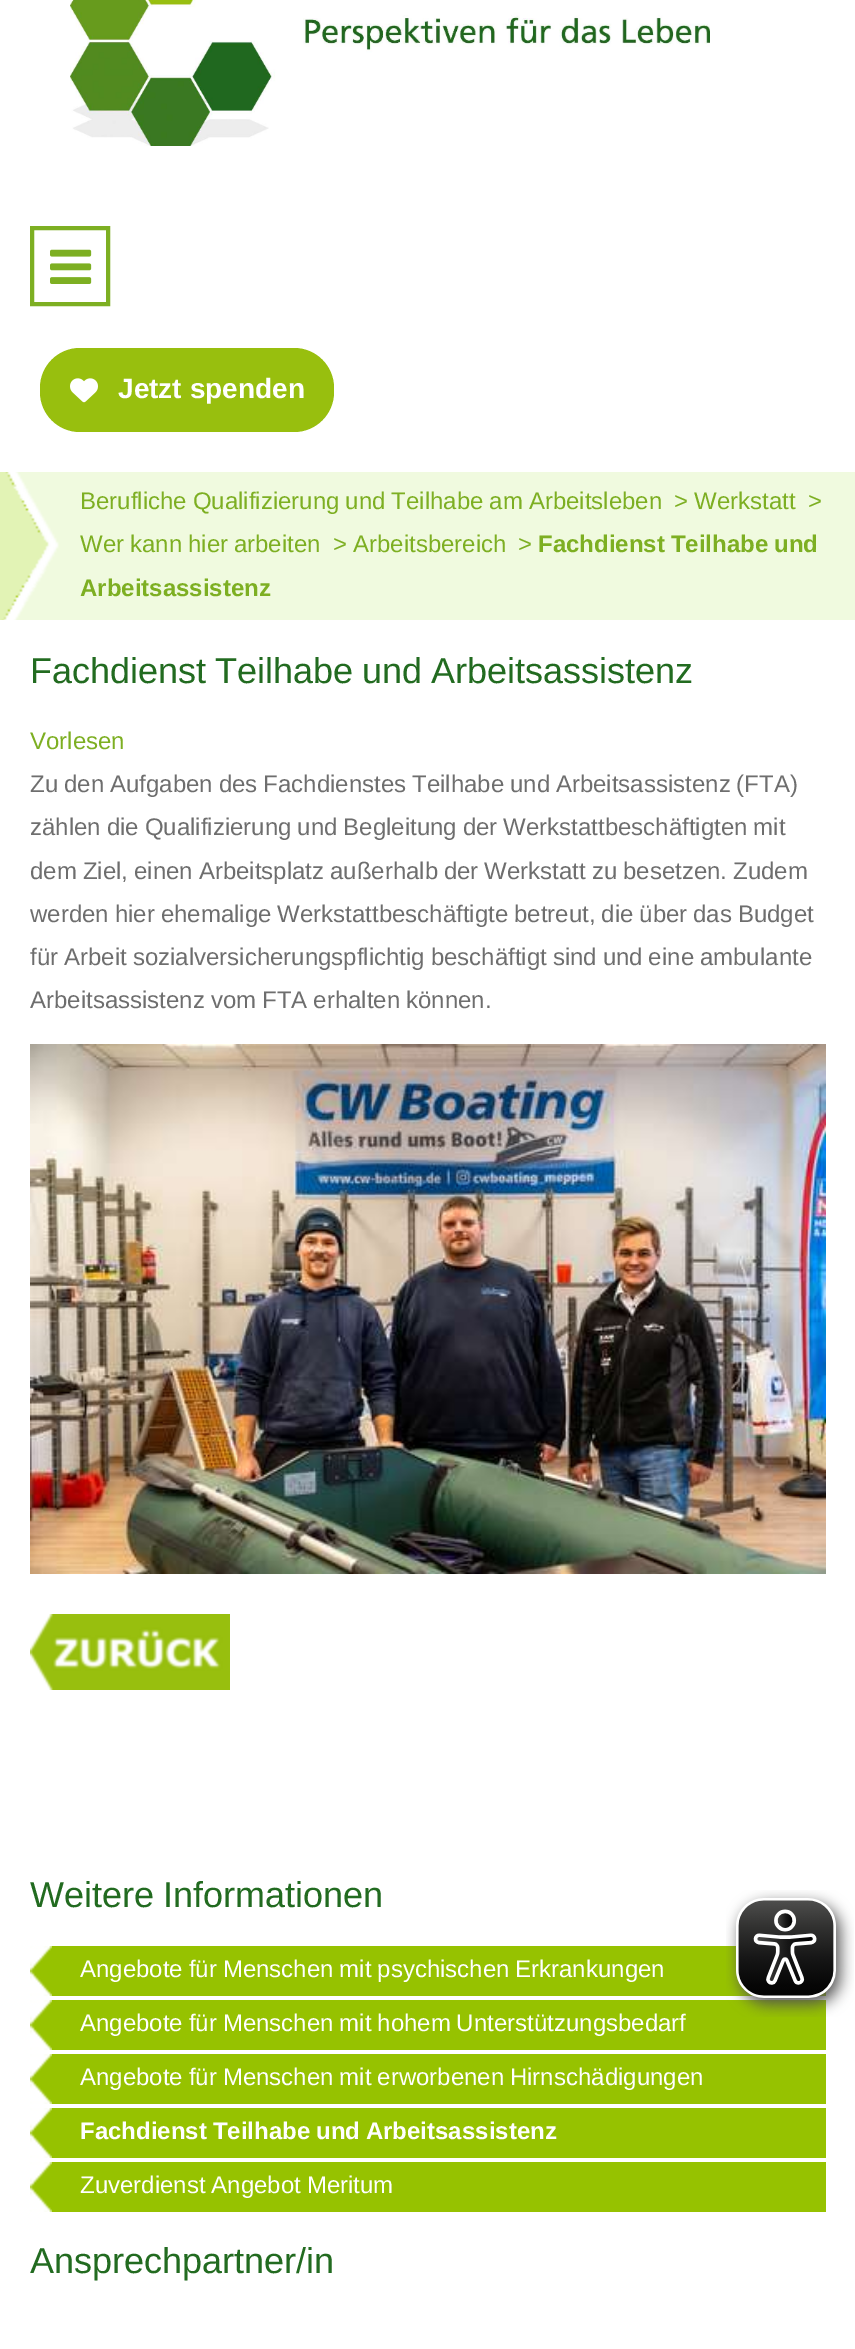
%!PS-Adobe-3.0
%%BoundingBox: 0 0 855 2349
%%LanguageLevel: 3
%%Pages: 1
%%EndComments
%%BeginProlog
/setink { 3 { 255 div 3 1 roll } repeat setrgbcolor } def
/usefont { [ exch dup neg 0 0 3 -1 roll 0 0 ] selectfont } def
/drawtext { setink usefont moveto show } def
/fillbox { setink rectfill } def
/rrect { 5 dict begin { /r /h /w /y /x } { exch def } forall
  x r add y moveto x w add y 2 copy h add r arct x w add y h add x 1 index r arct
  x y h add x y r arct x y 2 copy exch w add exch r arct closepath end } def
/drawimage { 5 dict begin { /h /w /y /x /name } { exch def } forall
  gsave x y translate w h scale
  w h 8 [w 0 0 h 0 0] name (r) file false 3 colorimage grestore end } def
%%EndProlog
%%BeginSetup
<< /PageSize [855 2349] >> setpagedevice
%%EndSetup
%%Page: 1 1
0 2349 translate 1 -1 scale
4 setmiterlimit
0 0 855 2349 255 255 255 fillbox
(assets/img1.rgb) 70 0 640 146 drawimage
125 175 34 setink
4 setlinewidth
32 228 76 76 rectstroke
(assets/img2.rgb) 50 249 42 35 drawimage
152 191 14 setink
40 348 294 84 40 rrect fill
(assets/img3.rgb) 70 378 28 25 drawimage
(Jetzt spenden) 118 398 /LiberationSans-Bold 28 255 255 255 drawtext
13 472 842 148 240 250 223 fillbox
(assets/img4.rgb) 0 472 59 148 drawimage
/LiberationSans-Regular 24 usefont
125 175 34 setink
80 509 moveto -0.75 0 32 (Berufliche Qualifizierung und Teilhabe am Arbeitsleben) widthshow
(>) 674 509 /LiberationSans-Regular 24 125 175 34 drawtext
(Werkstatt) 694 509 /LiberationSans-Regular 24 125 175 34 drawtext
(>) 808 509 /LiberationSans-Regular 24 125 175 34 drawtext
80 552 moveto -0.75 0 32 (Wer kann hier arbeiten) widthshow
(>) 333 552 /LiberationSans-Regular 24 125 175 34 drawtext
(Arbeitsbereich) 353 552 /LiberationSans-Regular 24 125 175 34 drawtext
(>) 518 552 /LiberationSans-Regular 24 125 175 34 drawtext
/LiberationSans-Bold 24 usefont
538 552 moveto -0.75 0 32 (Fachdienst Teilhabe und) widthshow
(Arbeitsassistenz) 80 596 /LiberationSans-Bold 24 125 175 34 drawtext
/LiberationSans-Regular 36 usefont
34 107 32 setink
30 683 moveto -1 0 32 (Fachdienst Teilhabe und Arbeitsassistenz) widthshow
(Vorlesen) 30 749 /LiberationSans-Regular 24 125 175 34 drawtext
110 110 110 setink
30 792 moveto -0.75 0 32 (Zu den Aufgaben des Fachdienstes Teilhabe und Arbeitsassistenz \(FTA\)) widthshow
30 835 moveto -0.75 0 32 (zählen die Qualifizierung und Begleitung der Werkstattbeschäftigten mit) widthshow
30 879 moveto -0.75 0 32 (dem Ziel, einen Arbeitsplatz außerhalb der Werkstatt zu besetzen. Zudem) widthshow
30 922 moveto -0.75 0 32 (werden hier ehemalige Werkstattbeschäftigte betreut, die über das Budget) widthshow
30 965 moveto -0.75 0 32 (für Arbeit sozialversicherungspflichtig beschäftigt sind und eine ambulante) widthshow
30 1008 moveto -0.75 0 32 (Arbeitsassistenz vom FTA erhalten können.) widthshow
(assets/img5.rgb) 30 1044 796 530 drawimage
(assets/img6.rgb) 30 1614 200 76 drawimage
/LiberationSans-Regular 36 usefont
34 107 32 setink
30 1907 moveto -1 0 32 (Weitere Informationen) widthshow
30 1946 796 50 150 194 0 fillbox
(assets/img7.rgb) 30 1946 22 50 drawimage
/LiberationSans-Regular 24 usefont
255 255 255 setink
80 1977 moveto -0.75 0 32 (Angebote für Menschen mit psychischen Erkrankungen) widthshow
30 2000 796 50 150 194 0 fillbox
(assets/img7.rgb) 30 2000 22 50 drawimage
255 255 255 setink
80 2031 moveto -0.75 0 32 (Angebote für Menschen mit hohem Unterstützungsbedarf) widthshow
30 2054 796 50 150 194 0 fillbox
(assets/img7.rgb) 30 2054 22 50 drawimage
255 255 255 setink
80 2085 moveto -0.75 0 32 (Angebote für Menschen mit erworbenen Hirnschädigungen) widthshow
30 2108 796 50 150 194 0 fillbox
(assets/img7.rgb) 30 2108 22 50 drawimage
/LiberationSans-Bold 24 usefont
255 255 255 setink
80 2139 moveto -0.75 0 32 (Fachdienst Teilhabe und Arbeitsassistenz) widthshow
30 2162 796 50 150 194 0 fillbox
(assets/img7.rgb) 30 2162 22 50 drawimage
/LiberationSans-Regular 24 usefont
255 255 255 setink
80 2193 moveto -0.75 0 32 (Zuverdienst Angebot Meritum) widthshow
(Ansprechpartner/in) 30 2273 /LiberationSans-Regular 36 34 107 32 drawtext
(assets/img8.rgb) 726 1890 128 127 drawimage
showpage
%%EOF
